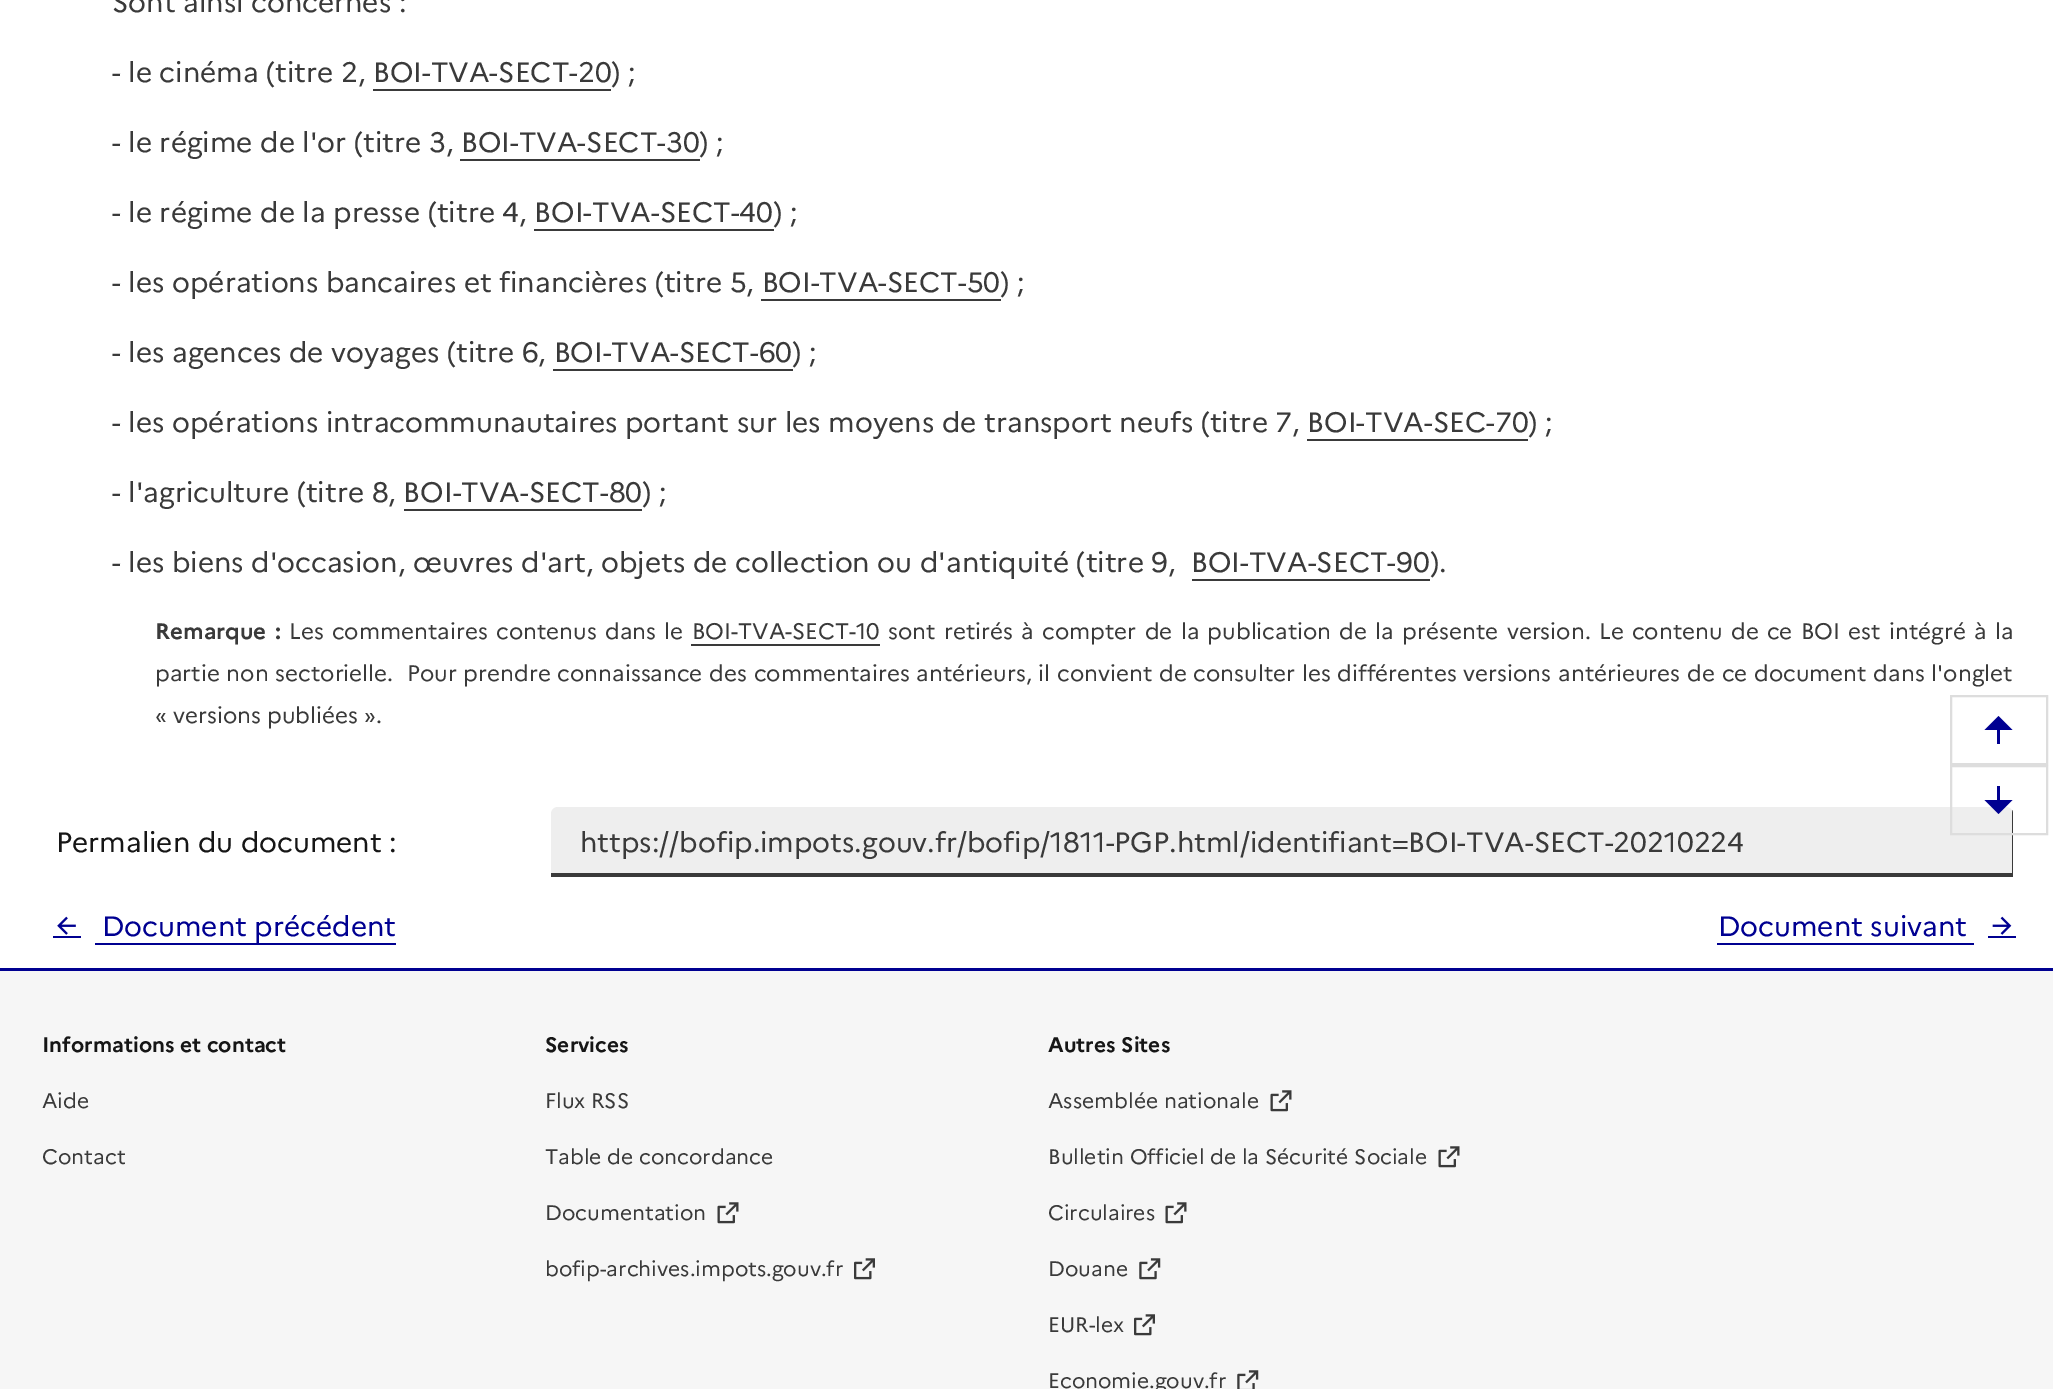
%!PS-Adobe-3.0
%%BoundingBox: 0 0 2053 1389
%%LanguageLevel: 3
%%Pages: 1
%%EndComments
%%BeginProlog
/setink { 3 { 255 div 3 1 roll } repeat setrgbcolor } def
/usefont { [ exch dup neg 0 0 3 -1 roll 0 0 ] selectfont } def
/drawtext { setink usefont moveto show } def
/fillbox { setink rectfill } def
/drawimage { 5 dict begin { /h /w /y /x /name } { exch def } forall
  gsave x y translate w h scale
  w h 8 [w 0 0 h 0 0] name (r) file false 3 colorimage grestore end } def
%%EndProlog
%%BeginSetup
<< /PageSize [2053 1389] >> setpagedevice
%%EndSetup
%%Page: 1 1
0 1389 translate 1 -1 scale
4 setmiterlimit
0 0 2053 1389 255 255 255 fillbox
(Sont ainsi concernés :) 112 12 /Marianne-Regular 28 58 58 58 drawtext
(- le cinéma \(titre 2, BOI-TVA-SECT-20\) ;) 112 82 /Marianne-Regular 28 58 58 58 drawtext
373 89 238 2 58 58 58 fillbox
(- le régime de l'or \(titre 3, BOI-TVA-SECT-30\) ;) 112 152 /Marianne-Regular 28 58 58 58 drawtext
460 159 240 2 58 58 58 fillbox
(- le régime de la presse \(titre 4, BOI-TVA-SECT-40\) ;) 112 222 /Marianne-Regular 28 58 58 58 drawtext
534 229 240 2 58 58 58 fillbox
(- les opérations bancaires et financières \(titre 5, BOI-TVA-SECT-50\) ;) 112 292 /Marianne-Regular 28 58 58 58 drawtext
761 299 240 2 58 58 58 fillbox
(- les agences de voyages \(titre 6, BOI-TVA-SECT-60\) ;) 112 362 /Marianne-Regular 28 58 58 58 drawtext
553 369 240 2 58 58 58 fillbox
(- les opérations intracommunautaires portant sur les moyens de transport neufs \(titre 7, BOI-TVA-SEC-70\) ;) 112 432 /Marianne-Regular 28 58 58 58 drawtext
1307 439 221 2 58 58 58 fillbox
(- l'agriculture \(titre 8, BOI-TVA-SECT-80\) ;) 112 502 /Marianne-Regular 28 58 58 58 drawtext
404 509 238 2 58 58 58 fillbox
(- les biens d'occasion, œuvres d'art, objets de collection ou d'antiquité \(titre 9,) 112 572 /Marianne-Regular 28 58 58 58 drawtext
(BOI-TVA-SECT-90\).) 1191 572 /Marianne-Regular 28 58 58 58 drawtext
1192 579 238 2 58 58 58 fillbox
/Marianne-Bold 22.4 usefont
155 639 moveto 2.25 0 32 (Remarque :) widthshow
/Marianne-Regular 22.4 usefont
289 639 moveto 2.25 0 32 (Les commentaires contenus dans le) widthshow
(BOI-TVA-SECT-10) 692 639 /Marianne-Regular 22.4 58 58 58 drawtext
691 644 189 2 58 58 58 fillbox
888 639 moveto 2.25 0 32 (sont retirés à compter de la publication de la présente version. Le contenu de ce BOI est intégré à la) widthshow
155 681 moveto 0.75 0 32 (partie non sectorielle.  Pour prendre connaissance des commentaires antérieurs, il convient de consulter les différentes versions antérieures de ce document dans l'onglet) widthshow
(« versions publiées ».) 155 723 /Marianne-Regular 22.4 58 58 58 drawtext
(Permalien du document :) 56 852 /Marianne-Regular 28 22 22 22 drawtext
238 238 238 setink
558 807 moveto 2006 807 lineto 2010 807 2013 810 2013 814 curveto 2013 877 lineto 551 877 lineto 551 814 lineto 551 810 554 807 558 807 curveto closepath fill
58 58 58 setink
551 873 moveto 551 877 lineto 2013 877 lineto 2013 814 lineto 2013 813 2013 811 2012 810 curveto 2012 873 lineto closepath fill
(https://bofip.impots.gouv.fr/bofip/1811-PGP.html/identifiant=BOI-TVA-SECT-20210224) 580 852 /Marianne-Regular 28 58 58 58 drawtext
53 936 28 2 0 0 145 fillbox
95 943 301 2 0 0 145 fillbox
(assets/img1.rgb) 57 916 19 19 drawimage
(Document précédent) 102 936 /Marianne-Regular 28 0 0 145 drawtext
1717 943 257 2 0 0 145 fillbox
1988 936 28 2 0 0 145 fillbox
(Document suivant) 1718 936 /Marianne-Regular 28 0 0 145 drawtext
(assets/img2.rgb) 1992 916 20 19 drawimage
221 221 221 setink
2 setlinewidth
1951 696 96 68 rectstroke
0 0 145 setink
2000 730 moveto 2000 744 lineto 1997 744 lineto 1997 730 lineto 1984.5 730 lineto 1998.5 716 lineto 2012.5 730 lineto closepath fill
221 221 221 setink
1951 766 96 68 rectstroke
0 0 145 setink
2000 800 moveto 2012.5 800 lineto 1998.5 814 lineto 1984.5 800 lineto 1997 800 lineto 1997 786 lineto 2000 786 lineto closepath fill
0 968 2053 3 0 0 145 fillbox
0 971 2053 418 246 246 246 fillbox
(Informations et contact) 42 1052 /Marianne-Bold 21 22 22 22 drawtext
(Aide) 42 1108 /Marianne-Regular 21 58 58 58 drawtext
(Contact) 42 1164 /Marianne-Regular 21 58 58 58 drawtext
(Services) 545 1052 /Marianne-Bold 21 22 22 22 drawtext
(Flux RSS) 545 1108 /Marianne-Regular 21 58 58 58 drawtext
(Table de concordance) 545 1164 /Marianne-Regular 21 58 58 58 drawtext
(Documentation) 545 1220 /Marianne-Regular 21 58 58 58 drawtext
(assets/img3.rgb) 717 1202 22 22 drawimage
(bofip-archives.impots.gouv.fr) 545 1276 /Marianne-Regular 21 58 58 58 drawtext
(assets/img4.rgb) 854 1258 21 22 drawimage
(Autres Sites) 1048 1052 /Marianne-Bold 21 22 22 22 drawtext
(Assemblée nationale) 1048 1108 /Marianne-Regular 21 58 58 58 drawtext
(assets/img3.rgb) 1270 1090 22 22 drawimage
(Bulletin Officiel de la Sécurité Sociale) 1048 1164 /Marianne-Regular 21 58 58 58 drawtext
(assets/img3.rgb) 1438 1146 22 22 drawimage
(Circulaires) 1048 1220 /Marianne-Regular 21 58 58 58 drawtext
(assets/img3.rgb) 1165 1202 22 22 drawimage
(Douane) 1048 1276 /Marianne-Regular 21 58 58 58 drawtext
(assets/img5.rgb) 1139 1258 22 22 drawimage
(EUR-lex) 1048 1332 /Marianne-Regular 21 58 58 58 drawtext
(assets/img4.rgb) 1134 1314 21 22 drawimage
(Economie.gouv.fr) 1048 1388 /Marianne-Regular 21 58 58 58 drawtext
(assets/img6.rgb) 1237 1370 22 19 drawimage
showpage
%%EOF
